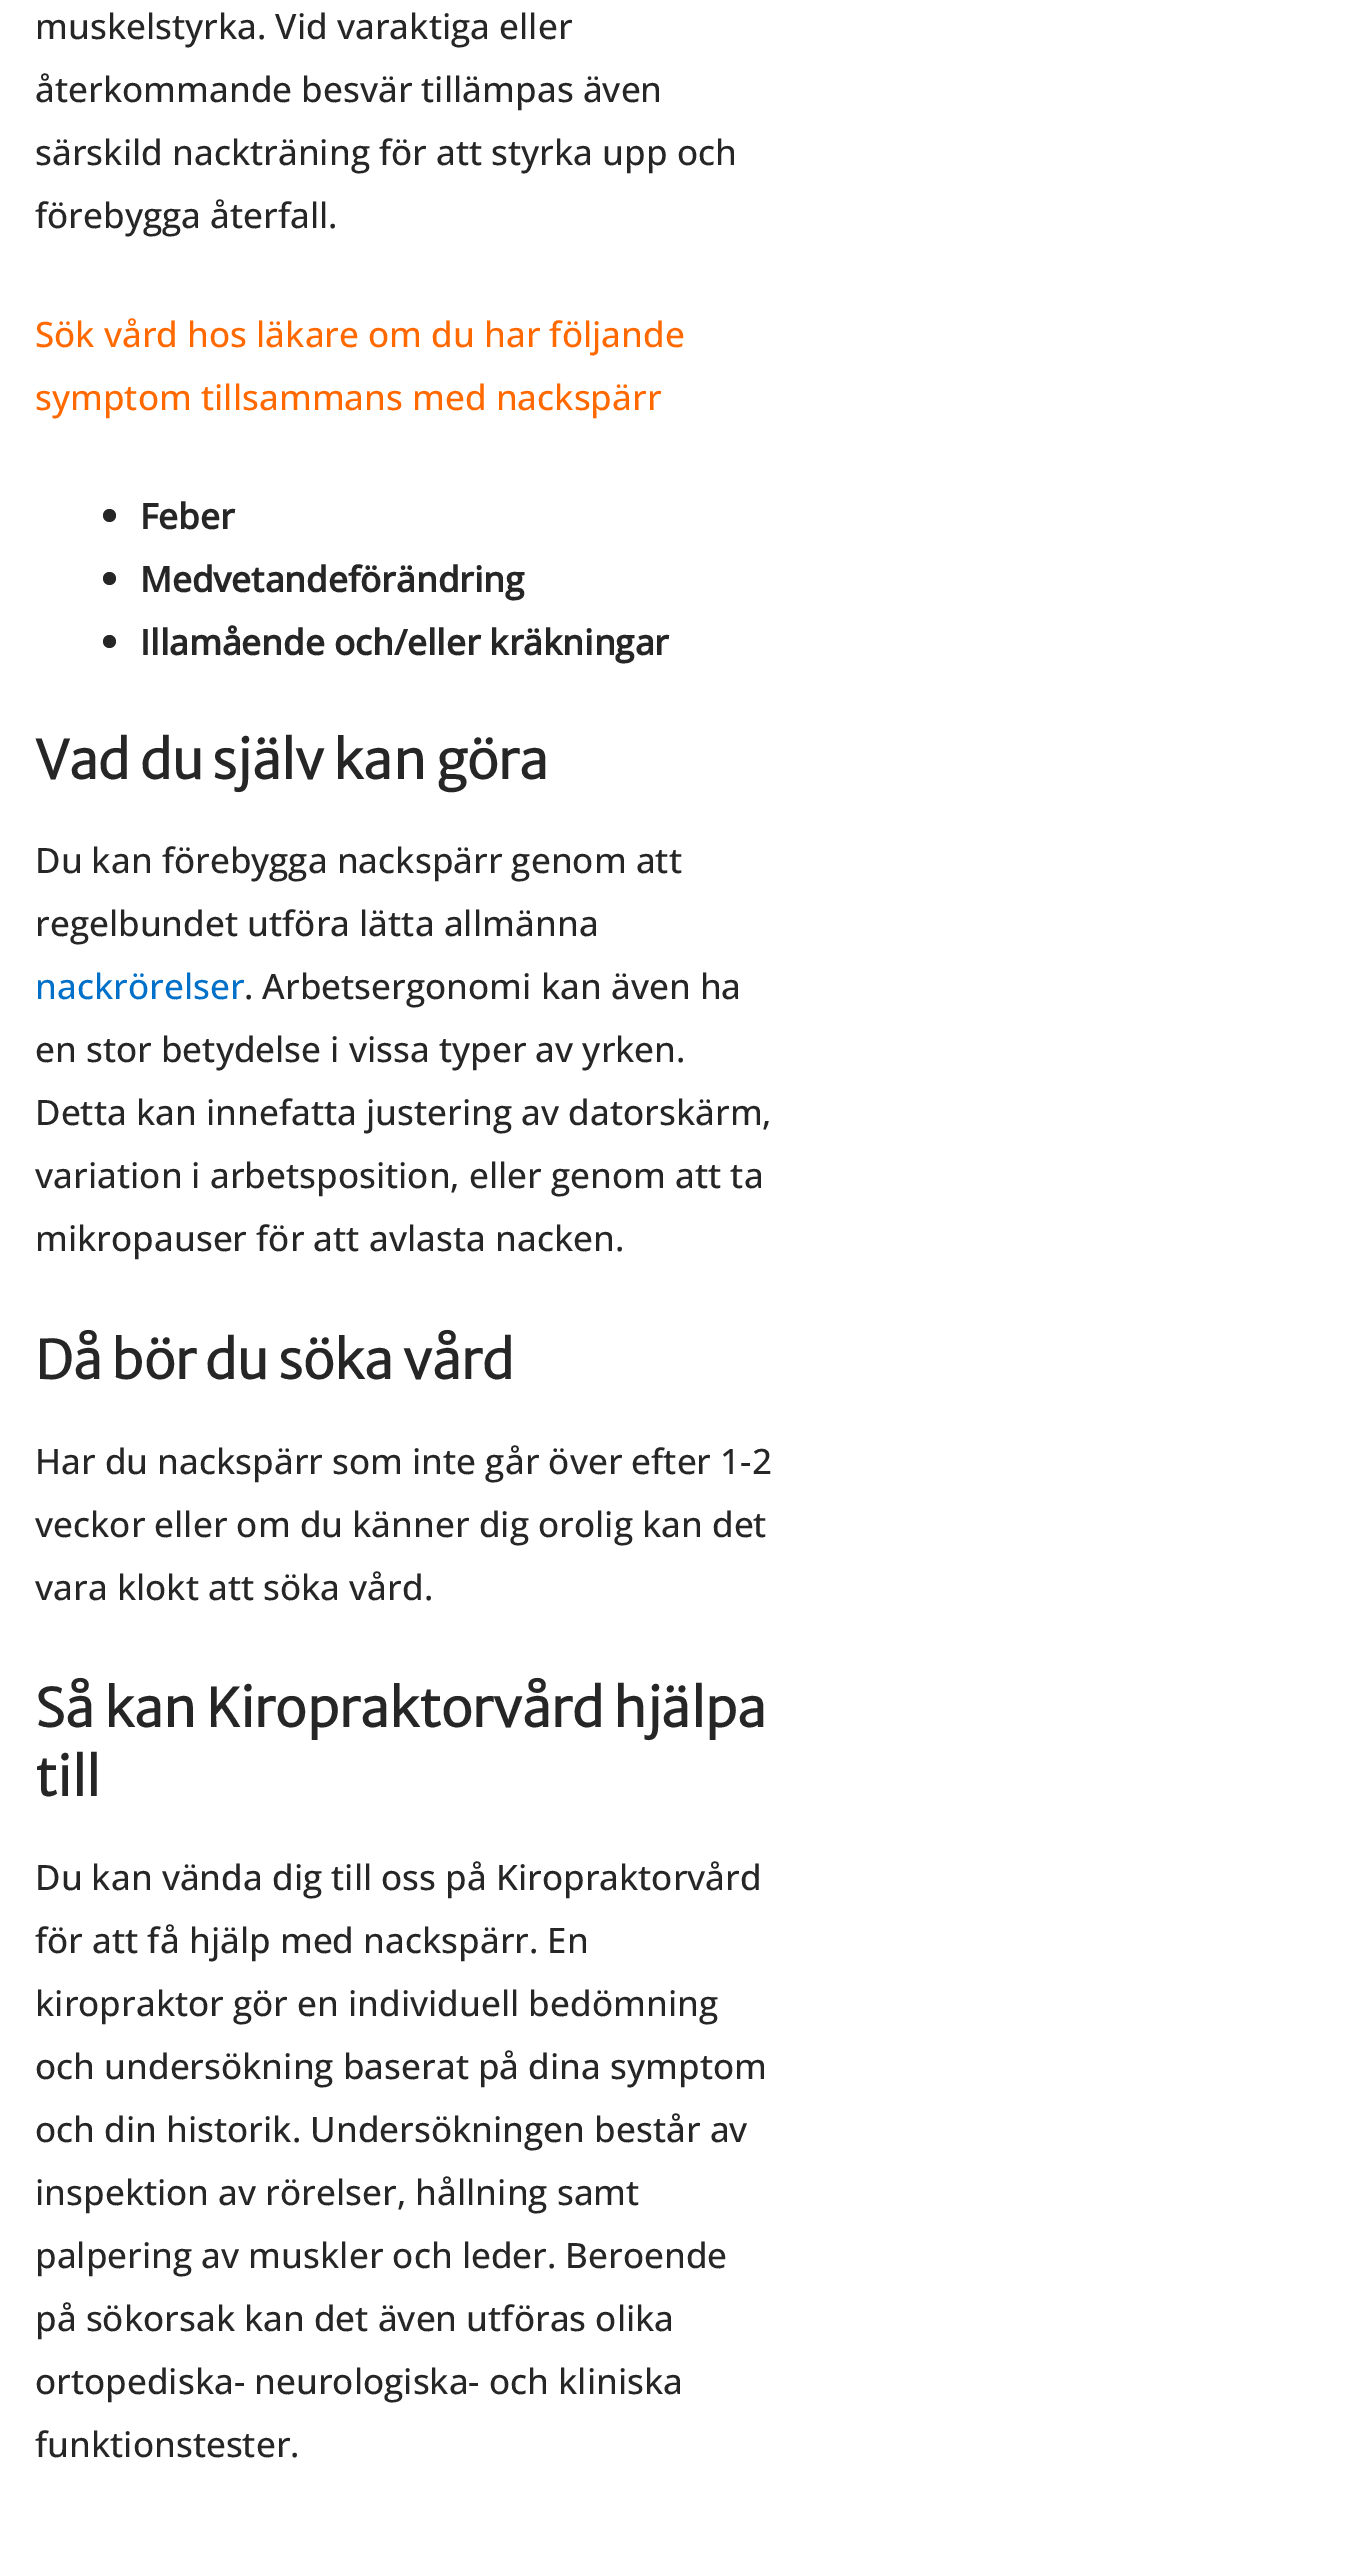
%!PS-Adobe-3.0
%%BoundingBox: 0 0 1351 2554
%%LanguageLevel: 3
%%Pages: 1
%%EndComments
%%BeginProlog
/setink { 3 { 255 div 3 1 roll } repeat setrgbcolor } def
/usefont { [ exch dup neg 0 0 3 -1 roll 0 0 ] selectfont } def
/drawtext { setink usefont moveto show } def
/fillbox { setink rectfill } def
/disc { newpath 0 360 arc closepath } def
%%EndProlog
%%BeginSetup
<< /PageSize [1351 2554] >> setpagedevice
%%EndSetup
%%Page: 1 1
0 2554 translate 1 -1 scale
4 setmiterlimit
0 0 1351 2554 255 255 255 fillbox
(muskelstyrka. Vid varaktiga eller) 35 39 /OpenSans-Medium 35 38 38 38 drawtext
(återkommande besvär tillämpas även) 35 102 /OpenSans-Medium 35 38 38 38 drawtext
(särskild nackträning för att styrka upp och) 35 165 /OpenSans-Medium 35 38 38 38 drawtext
(förebygga återfall.) 35 228 /OpenSans-Medium 35 38 38 38 drawtext
(Sök vård hos läkare om du har följande) 35 347 /OpenSans-Medium 35 255 105 0 drawtext
(symptom tillsammans med nackspärr) 35 410 /OpenSans-Medium 35 255 105 0 drawtext
38 38 38 setink
109.5 515.5 6.5 disc fill
(Feber) 140 529 /OpenSans-Bold 35 38 38 38 drawtext
109.5 578.5 6.5 disc fill
(Medvetandeförändring) 140 592 /OpenSans-Bold 35 38 38 38 drawtext
109.5 641.5 6.5 disc fill
(Illamående och/eller kräkningar) 140 655 /OpenSans-Bold 35 38 38 38 drawtext
(Vad du själv kan göra) 35 779 /MerriweatherSans-Bold 52.5 38 38 38 drawtext
(Du kan förebygga nackspärr genom att) 35 873 /OpenSans-Medium 35 38 38 38 drawtext
(regelbundet utföra lätta allmänna) 35 936 /OpenSans-Medium 35 38 38 38 drawtext
(nackrörelser) 35 999 /OpenSans-Medium 35 0 112 201 drawtext
(. Arbetsergonomi kan även ha) 244 999 /OpenSans-Medium 35 38 38 38 drawtext
(en stor betydelse i vissa typer av yrken.) 35 1062 /OpenSans-Medium 35 38 38 38 drawtext
(Detta kan innefatta justering av datorskärm,) 35 1125 /OpenSans-Medium 35 38 38 38 drawtext
(variation i arbetsposition, eller genom att ta) 35 1188 /OpenSans-Medium 35 38 38 38 drawtext
(mikropauser för att avlasta nacken.) 35 1251 /OpenSans-Medium 35 38 38 38 drawtext
(Då bör du söka vård) 35 1379 /MerriweatherSans-Bold 52.5 38 38 38 drawtext
(Har du nackspärr som inte går över efter 1-2) 35 1474 /OpenSans-Medium 35 38 38 38 drawtext
(veckor eller om du känner dig orolig kan det) 35 1537 /OpenSans-Medium 35 38 38 38 drawtext
(vara klokt att söka vård.) 35 1600 /OpenSans-Medium 35 38 38 38 drawtext
(Så kan Kiropraktorvård hjälpa) 35 1727 /MerriweatherSans-Bold 52.5 38 38 38 drawtext
(till) 35 1796 /MerriweatherSans-Bold 52.5 38 38 38 drawtext
(Du kan vända dig till oss på Kiropraktorvård) 35 1890 /OpenSans-Medium 35 38 38 38 drawtext
(för att få hjälp med nackspärr. En) 35 1953 /OpenSans-Medium 35 38 38 38 drawtext
(kiropraktor gör en individuell bedömning) 35 2016 /OpenSans-Medium 35 38 38 38 drawtext
(och undersökning baserat på dina symptom) 35 2079 /OpenSans-Medium 35 38 38 38 drawtext
(och din historik. Undersökningen består av) 35 2142 /OpenSans-Medium 35 38 38 38 drawtext
(inspektion av rörelser, hållning samt) 35 2205 /OpenSans-Medium 35 38 38 38 drawtext
(palpering av muskler och leder. Beroende) 35 2268 /OpenSans-Medium 35 38 38 38 drawtext
(på sökorsak kan det även utföras olika) 35 2331 /OpenSans-Medium 35 38 38 38 drawtext
(ortopediska- neurologiska- och kliniska) 35 2394 /OpenSans-Medium 35 38 38 38 drawtext
(funktionstester.) 35 2457 /OpenSans-Medium 35 38 38 38 drawtext
showpage
%%EOF
